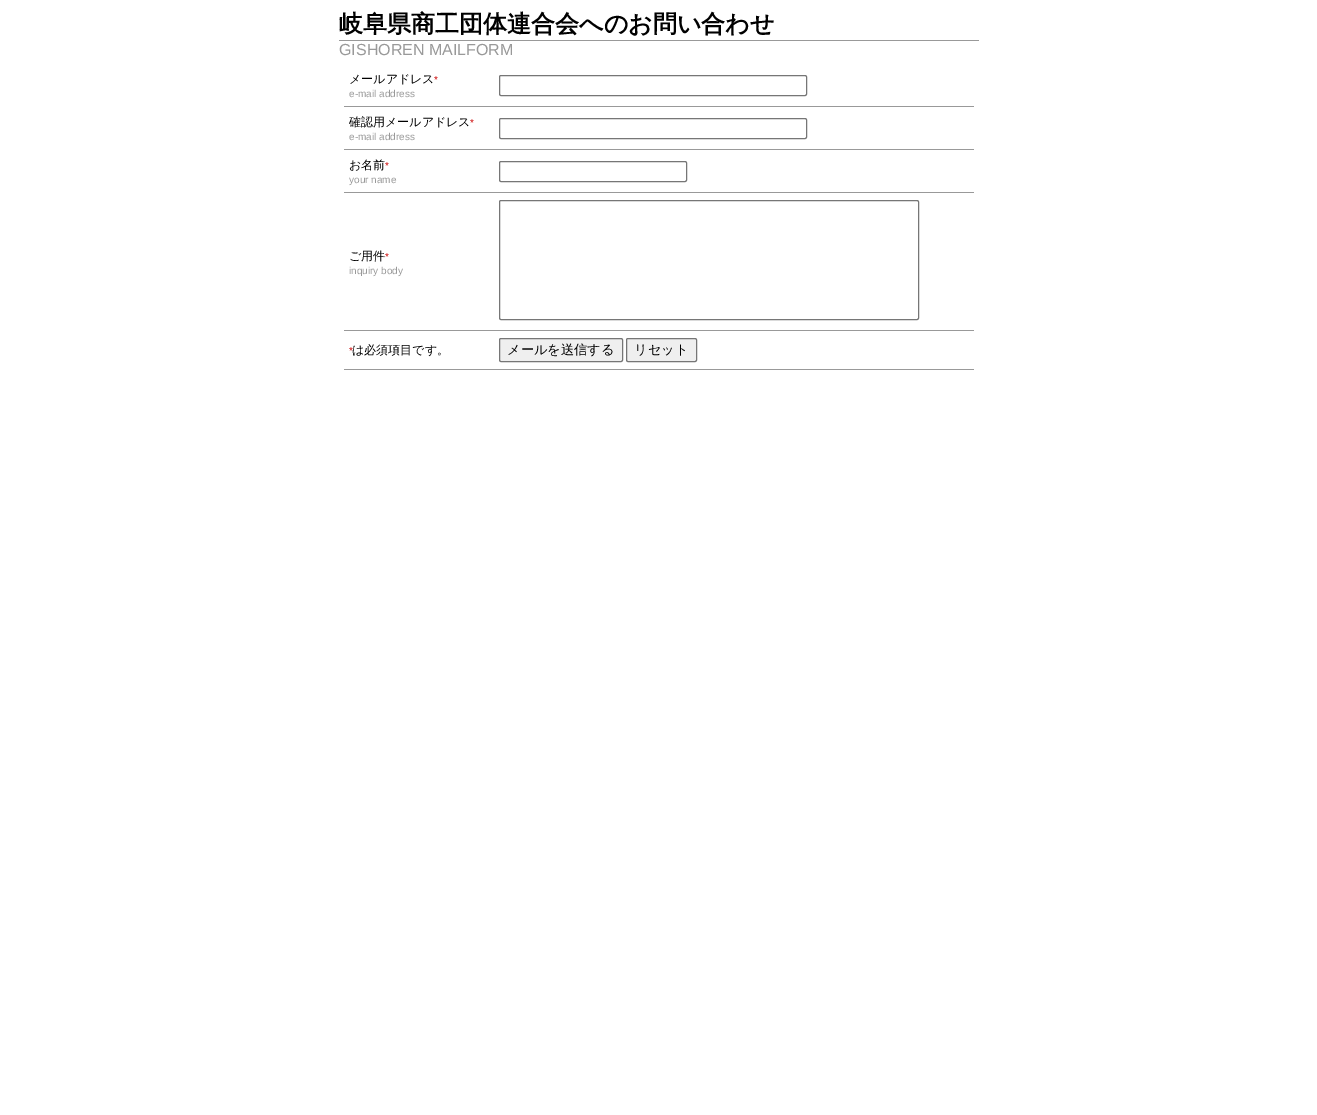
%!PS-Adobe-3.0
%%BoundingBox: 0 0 1317 1115
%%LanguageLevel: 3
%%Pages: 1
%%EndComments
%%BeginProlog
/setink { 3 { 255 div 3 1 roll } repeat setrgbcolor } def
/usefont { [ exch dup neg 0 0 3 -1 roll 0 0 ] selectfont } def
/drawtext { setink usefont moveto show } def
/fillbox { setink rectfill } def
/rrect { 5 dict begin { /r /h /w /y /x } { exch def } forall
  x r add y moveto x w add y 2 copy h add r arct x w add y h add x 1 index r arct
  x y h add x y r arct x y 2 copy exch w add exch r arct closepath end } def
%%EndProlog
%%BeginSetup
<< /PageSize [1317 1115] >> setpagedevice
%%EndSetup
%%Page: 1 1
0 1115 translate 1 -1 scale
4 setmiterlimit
0 0 1317 1115 255 255 255 fillbox
339 40 640 1 153 153 153 fillbox
(岐阜県商工団体連合会へのお問い合わせ) 339 32 /WenQuanYiZenHei-Bold 24 0 0 0 drawtext
(GISHOREN MAILFORM) 339 55 /LiberationSans-Regular 16 153 153 153 drawtext
344 106 630 1 153 153 153 fillbox
(メールアドレス) 349 83 /WenQuanYiZenHei-Medium 12 0 0 0 drawtext
(*) 434 83 /LiberationSans-Regular 10 204 0 0 drawtext
(e-mail address) 349 97 /LiberationSans-Regular 10 153 153 153 drawtext
118 118 118 setink
499.5 75.5 307 20 1.5 rrect stroke
344 149 630 1 153 153 153 fillbox
(確認用メールアドレス) 349 126 /WenQuanYiZenHei-Medium 12 0 0 0 drawtext
(*) 470 126 /LiberationSans-Regular 10 204 0 0 drawtext
(e-mail address) 349 140 /LiberationSans-Regular 10 153 153 153 drawtext
118 118 118 setink
499.5 118.5 307 20 1.5 rrect stroke
344 192 630 1 153 153 153 fillbox
(お名前) 349 169 /WenQuanYiZenHei-Medium 12 0 0 0 drawtext
(*) 385 169 /LiberationSans-Regular 10 204 0 0 drawtext
(your name) 349 183 /LiberationSans-Regular 10 153 153 153 drawtext
118 118 118 setink
499.5 161.5 187 20 1.5 rrect stroke
344 330 630 1 153 153 153 fillbox
(ご用件) 349 260 /WenQuanYiZenHei-Medium 12 0 0 0 drawtext
(*) 385 260 /LiberationSans-Regular 10 204 0 0 drawtext
(inquiry body) 349 274 /LiberationSans-Regular 10 153 153 153 drawtext
118 118 118 setink
499.5 200.5 419 119 1.5 rrect stroke
344 369 630 1 153 153 153 fillbox
(*) 349 354 /LiberationSans-Regular 10 204 0 0 drawtext
(は必須項目です。) 352 354 /WenQuanYiZenHei-Medium 12 0 0 0 drawtext
239 239 239 setink
499.5 338.5 123 23 1.5 rrect gsave fill grestore
118 118 118 setink
stroke
(メールを送信する) 507 354 /WenQuanYiZenHei-Medium 13.25 0 0 0 drawtext
239 239 239 setink
626.5 338.5 70 23 1.5 rrect gsave fill grestore
118 118 118 setink
stroke
(リセット) 634 354 /WenQuanYiZenHei-Medium 13.25 0 0 0 drawtext
showpage
%%EOF
